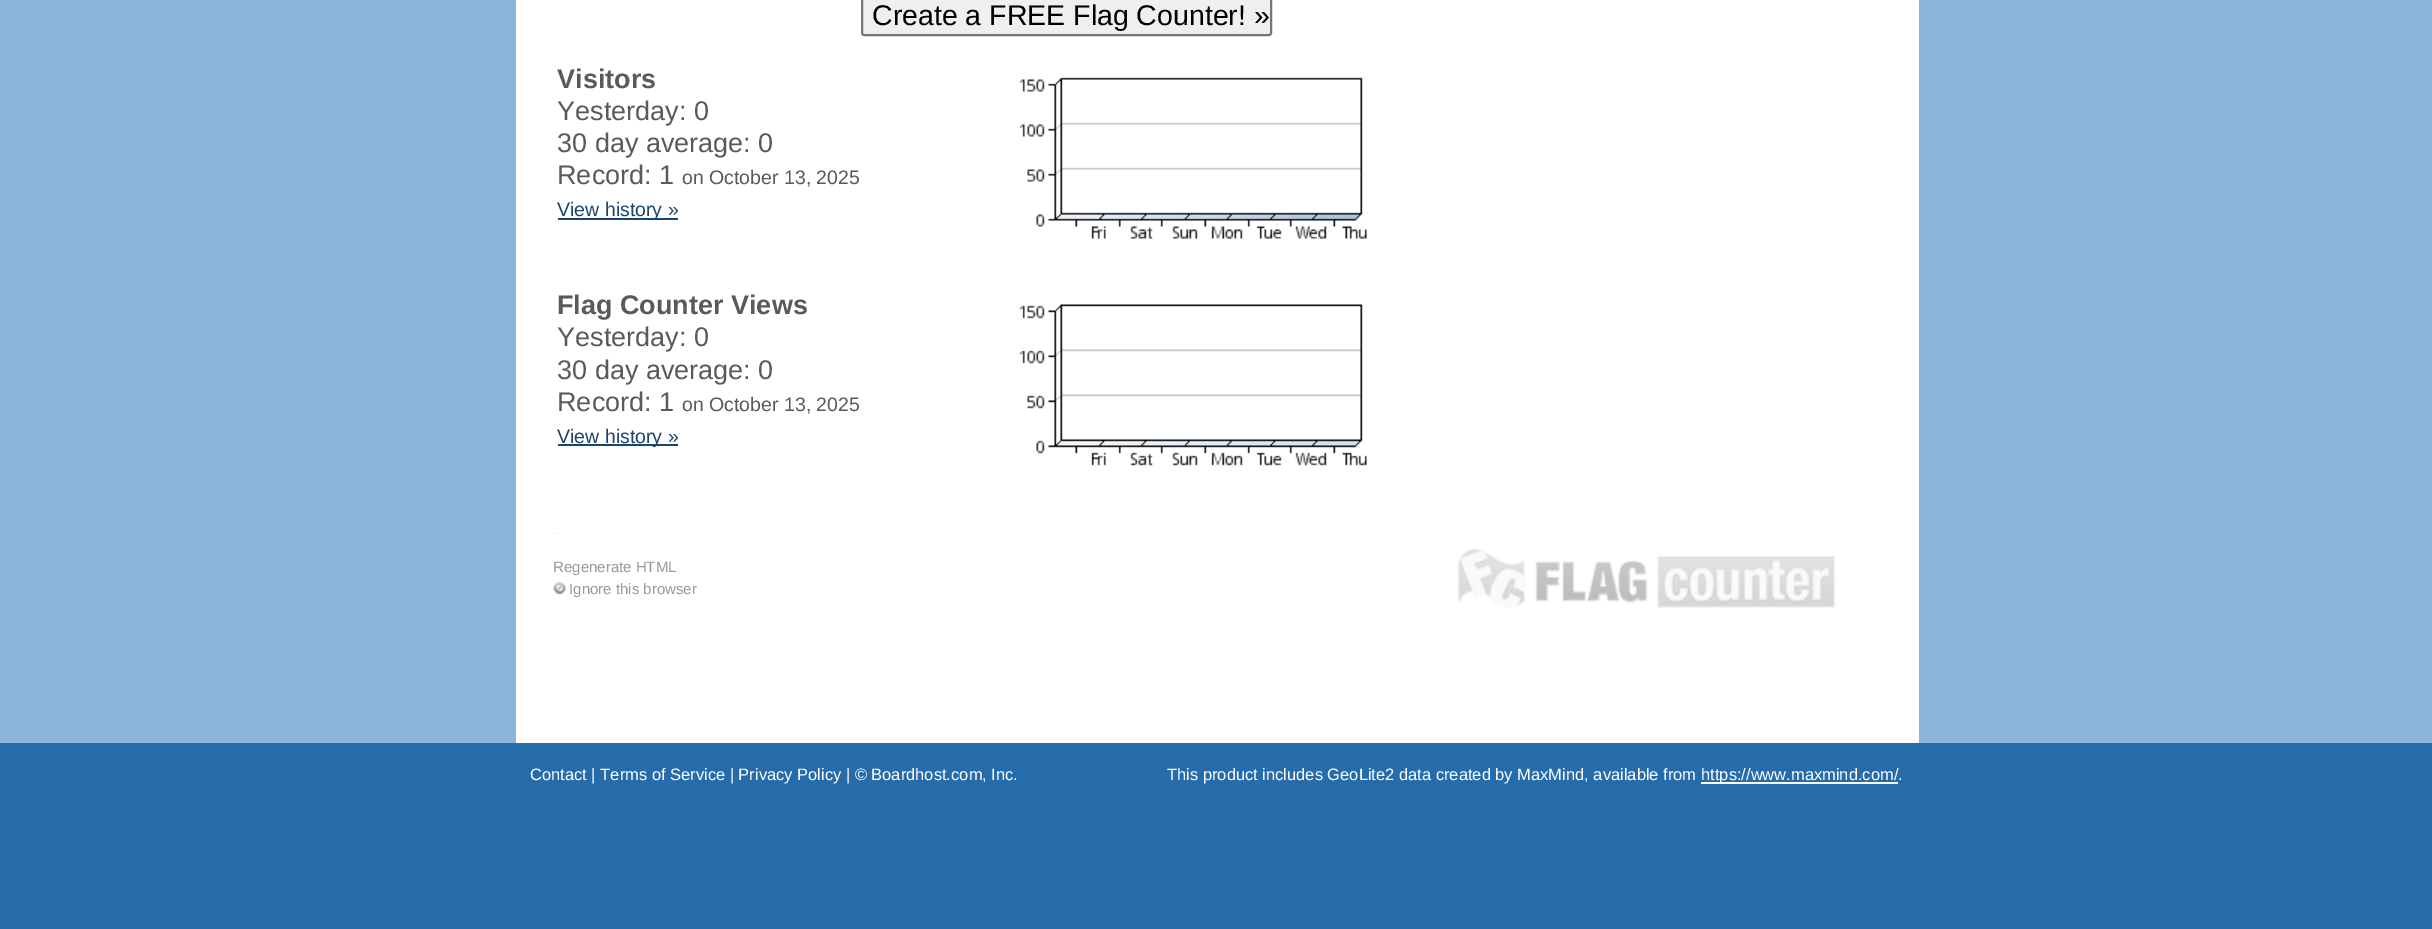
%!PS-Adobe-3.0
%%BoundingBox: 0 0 2432 929
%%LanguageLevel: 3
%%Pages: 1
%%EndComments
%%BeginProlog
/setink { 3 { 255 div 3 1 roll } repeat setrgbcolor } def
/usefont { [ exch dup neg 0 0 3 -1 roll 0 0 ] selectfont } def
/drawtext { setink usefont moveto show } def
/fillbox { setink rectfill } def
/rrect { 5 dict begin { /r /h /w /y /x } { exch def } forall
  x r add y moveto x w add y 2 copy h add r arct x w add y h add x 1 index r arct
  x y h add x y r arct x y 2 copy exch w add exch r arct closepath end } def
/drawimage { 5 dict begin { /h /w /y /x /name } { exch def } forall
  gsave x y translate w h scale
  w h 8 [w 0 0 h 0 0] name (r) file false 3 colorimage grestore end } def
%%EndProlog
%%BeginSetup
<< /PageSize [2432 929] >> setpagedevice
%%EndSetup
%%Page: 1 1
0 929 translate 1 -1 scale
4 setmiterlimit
0 0 2432 929 140 182 220 fillbox
516 0 1403 743 255 255 255 fillbox
239 239 239 setink
862 -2 409 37 2 rrect gsave fill grestore
118 118 118 setink
2 setlinewidth
stroke
(Create a FREE Flag Counter! ») 872 25 /LiberationSans-Regular 28.5 0 0 0 drawtext
(Visitors) 557 88 /LiberationSans-Bold 27 87 91 92 drawtext
(Yesterday: 0) 557 120 /LiberationSans-Regular 27 87 91 92 drawtext
(30 day average: 0) 557 152 /LiberationSans-Regular 27 87 91 92 drawtext
(Record: 1) 557 184 /LiberationSans-Regular 27 87 91 92 drawtext
(on October 13, 2025) 682 184 /LiberationSans-Regular 19.5 87 91 92 drawtext
558 218 120 2 26 69 110 fillbox
(View history ») 557 216 /LiberationSans-Regular 19.5 26 69 110 drawtext
(assets/img1.rgb) 1019 77 348 162 drawimage
(Flag Counter Views) 557 314 /LiberationSans-Bold 27 87 91 92 drawtext
(Yesterday: 0) 557 346 /LiberationSans-Regular 27 87 91 92 drawtext
(30 day average: 0) 557 379 /LiberationSans-Regular 27 87 91 92 drawtext
(Record: 1) 557 411 /LiberationSans-Regular 27 87 91 92 drawtext
(on October 13, 2025) 682 411 /LiberationSans-Regular 19.5 87 91 92 drawtext
558 444 120 2 26 69 110 fillbox
(View history ») 557 443 /LiberationSans-Regular 19.5 26 69 110 drawtext
(assets/img2.rgb) 1019 304 348 162 drawimage
(assets/img3.rgb) 553 532 2 2 drawimage
(Regenerate HTML) 553 572 /LiberationSans-Regular 15 152 152 152 drawtext
(assets/img4.rgb) 553 581 13 13 drawimage
(Ignore this browser) 569 594 /LiberationSans-Regular 15 152 152 152 drawtext
(assets/img5.rgb) 1458 549 377 59 drawimage
0 743 2432 186 38 107 170 fillbox
(Contact | Terms of Service | Privacy Policy | © Boardhost.com, Inc.) 530 780 /LiberationSans-Regular 16.5 255 255 255 drawtext
(This product includes GeoLite2 data created by MaxMind, available from) 1167 780 /LiberationSans-Regular 16.5 255 255 255 drawtext
1701 782 197 2 255 255 255 fillbox
(https://www.maxmind.com/.) 1701 780 /LiberationSans-Regular 16.5 255 255 255 drawtext
showpage
%%EOF
